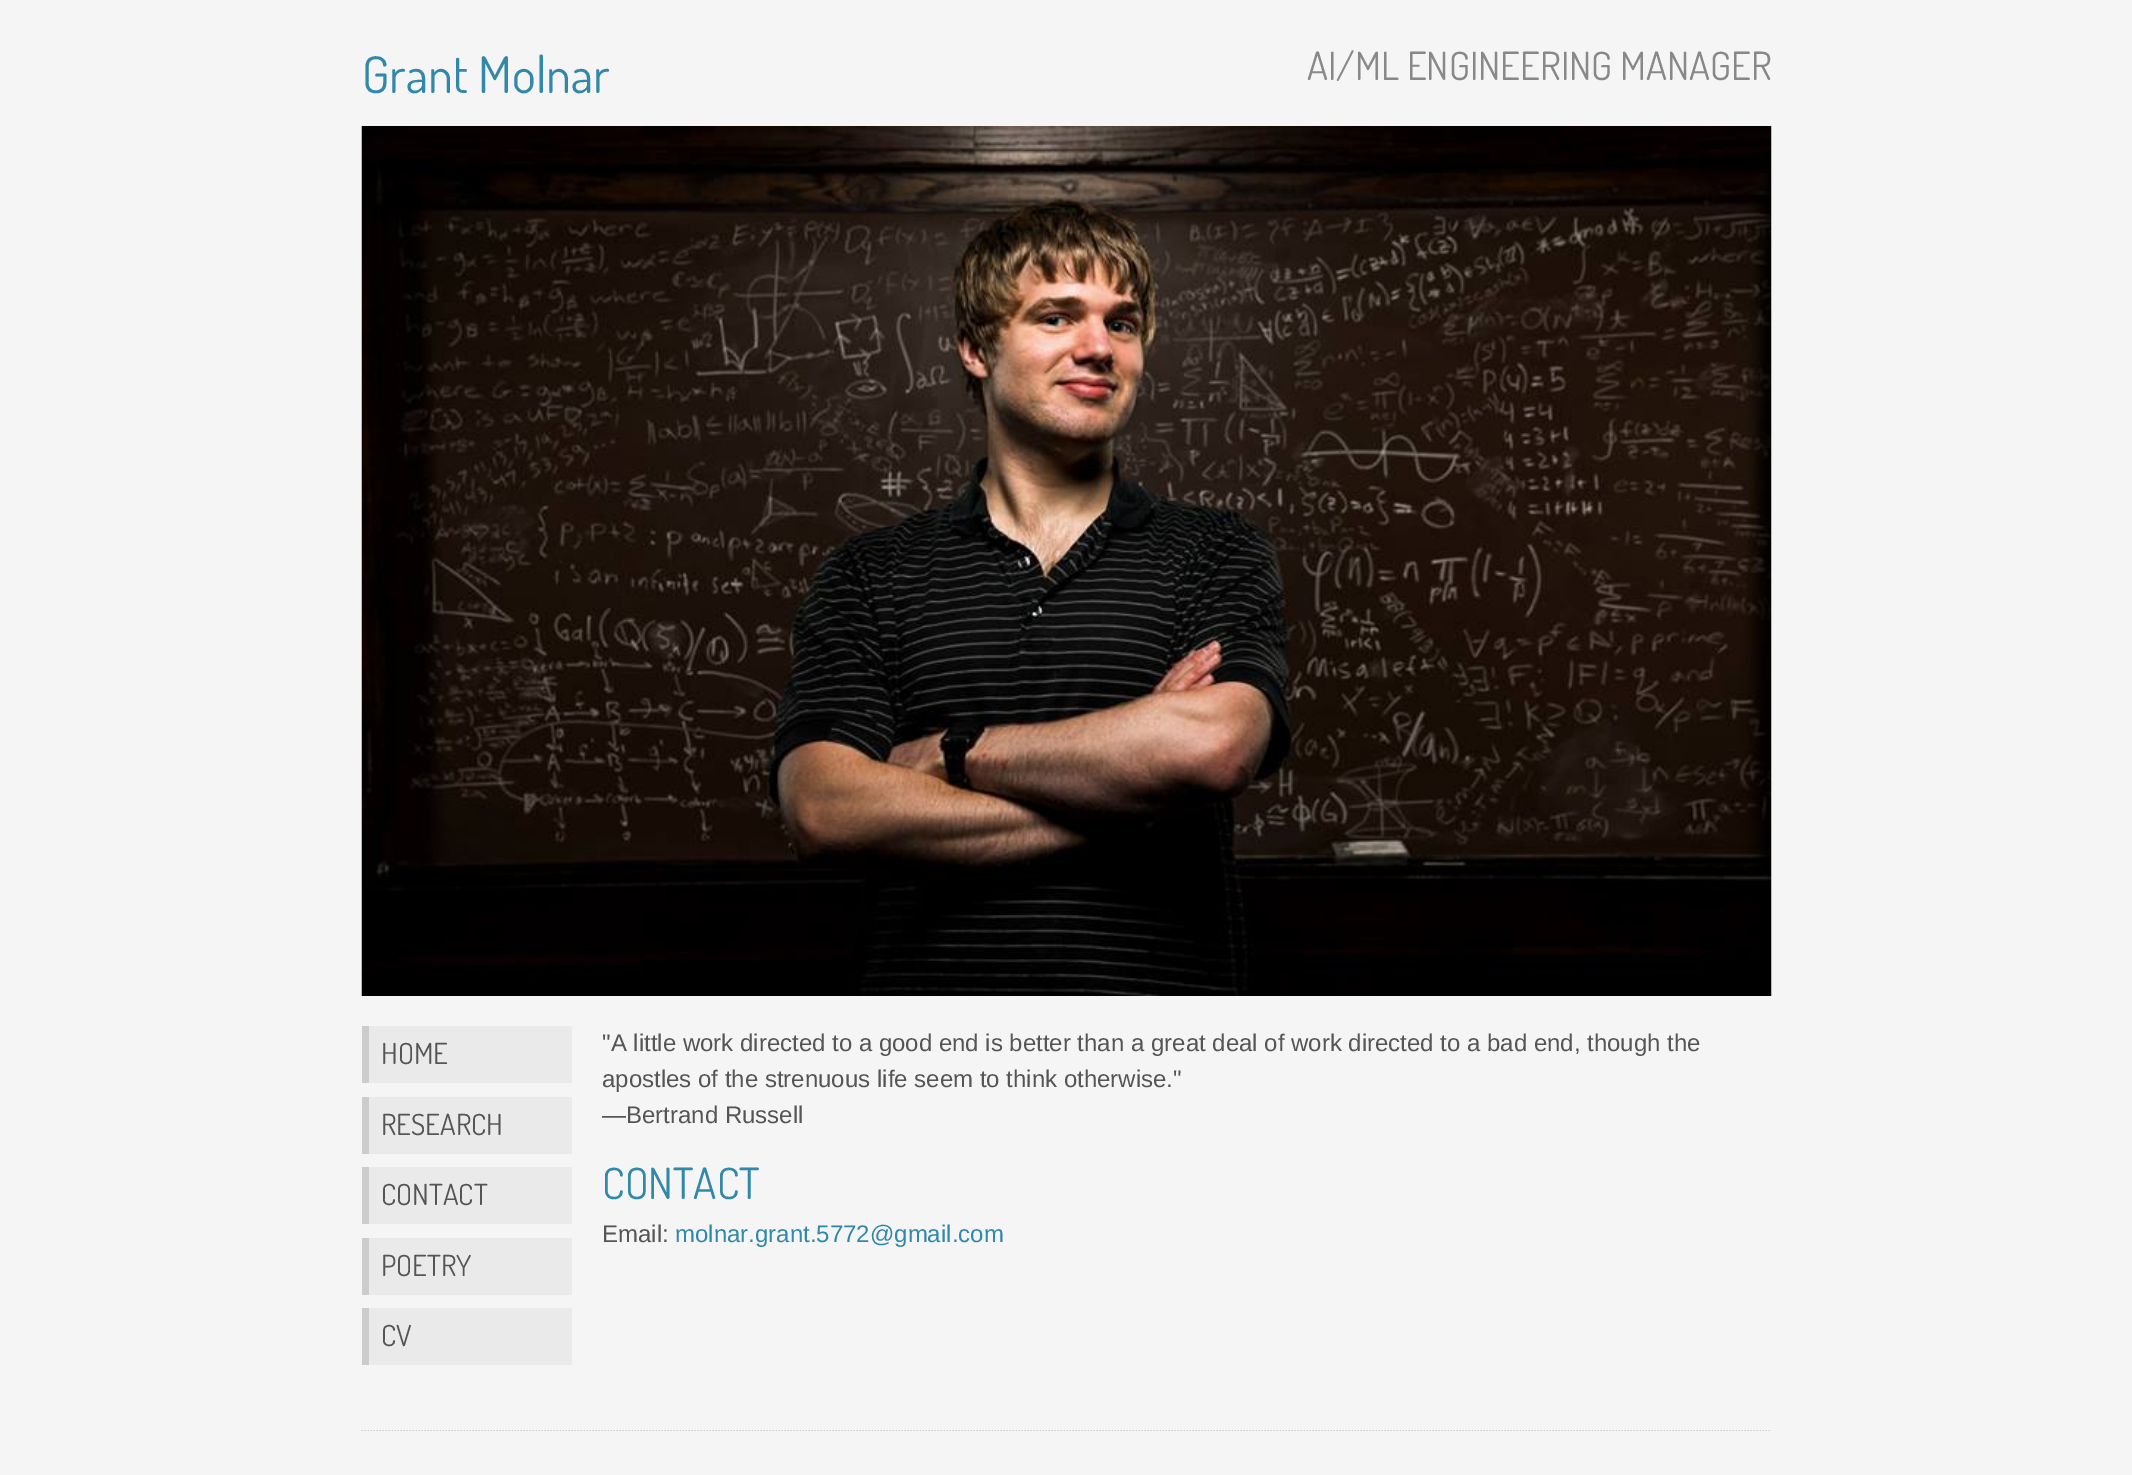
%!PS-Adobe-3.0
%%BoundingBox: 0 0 2132 1475
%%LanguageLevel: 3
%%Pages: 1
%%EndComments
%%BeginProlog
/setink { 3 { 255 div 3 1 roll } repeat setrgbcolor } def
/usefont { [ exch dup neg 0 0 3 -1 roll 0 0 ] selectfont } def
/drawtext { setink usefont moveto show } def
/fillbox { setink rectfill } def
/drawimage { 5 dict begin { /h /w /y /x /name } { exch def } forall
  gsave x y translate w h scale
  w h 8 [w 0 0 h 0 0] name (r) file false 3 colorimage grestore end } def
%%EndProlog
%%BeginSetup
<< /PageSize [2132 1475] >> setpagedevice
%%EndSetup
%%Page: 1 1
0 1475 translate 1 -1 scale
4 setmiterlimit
0 0 2132 1475 245 245 245 fillbox
(Grant Molnar) 362 93 /Dosis-Regular 50.5 50 136 168 drawtext
(AI/ML ENGINEERING MANAGER) 1307 80 /Dosis-Regular 38.9 136 136 136 drawtext
(assets/img1.rgb) 361 126 1411 870 drawimage
369 1026 203 57 234 234 234 fillbox
362 1026 7 57 204 204 204 fillbox
(HOME) 381 1064 /Dosis-Regular 29 85 85 85 drawtext
369 1097 203 57 234 234 234 fillbox
362 1097 7 57 204 204 204 fillbox
(RESEARCH) 381 1135 /Dosis-Regular 29 85 85 85 drawtext
369 1167 203 57 234 234 234 fillbox
362 1167 7 57 204 204 204 fillbox
(CONTACT) 381 1205 /Dosis-Regular 29 85 85 85 drawtext
369 1238 203 57 234 234 234 fillbox
362 1238 7 57 204 204 204 fillbox
(POETRY) 381 1276 /Dosis-Regular 29 85 85 85 drawtext
369 1308 203 57 234 234 234 fillbox
362 1308 7 57 204 204 204 fillbox
(CV) 381 1346 /Dosis-Regular 29 85 85 85 drawtext
("A little work directed to a good end is better than a great deal of work directed to a bad end, though the) 602 1051 /LiberationSans-Regular 24 85 85 85 drawtext
(apostles of the strenuous life seem to think otherwise.") 602 1087 /LiberationSans-Regular 24 85 85 85 drawtext
(—Bertrand Russell) 602 1123 /LiberationSans-Regular 24 85 85 85 drawtext
(CONTACT) 602 1199 /Dosis-Regular 43 50 136 168 drawtext
(Email:) 602 1242 /LiberationSans-Regular 24 85 85 85 drawtext
(molnar.grant.5772@gmail.com) 675 1242 /LiberationSans-Regular 24 50 136 168 drawtext
gsave
347 1430 1440 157 rectclip
204 204 204 setink
1.5 setlinewidth
[1.5 1.5] 0 setdash
361.5 1430 moveto 1771.5 1430 lineto stroke
grestore
showpage
%%EOF
